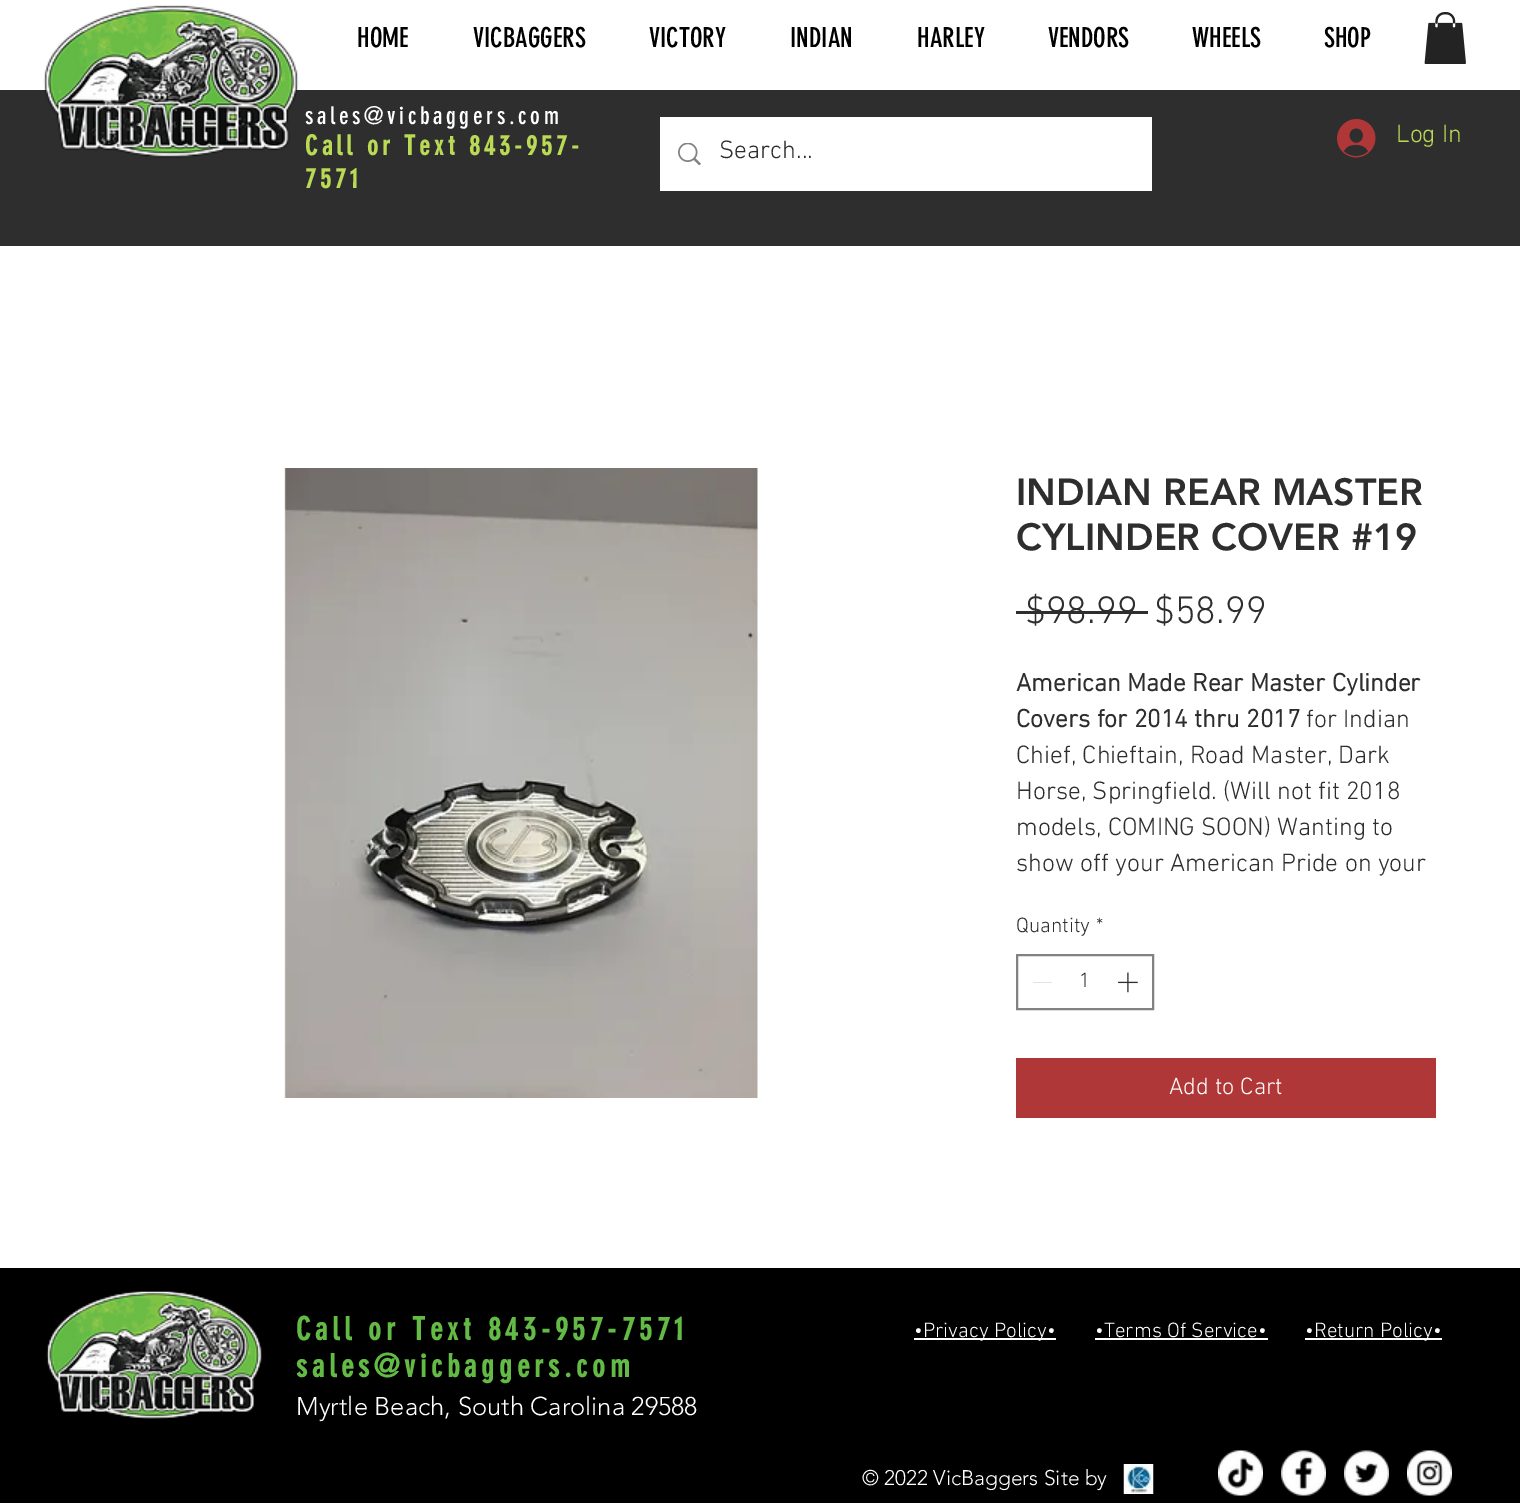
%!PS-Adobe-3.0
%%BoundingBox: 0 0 1520 1503
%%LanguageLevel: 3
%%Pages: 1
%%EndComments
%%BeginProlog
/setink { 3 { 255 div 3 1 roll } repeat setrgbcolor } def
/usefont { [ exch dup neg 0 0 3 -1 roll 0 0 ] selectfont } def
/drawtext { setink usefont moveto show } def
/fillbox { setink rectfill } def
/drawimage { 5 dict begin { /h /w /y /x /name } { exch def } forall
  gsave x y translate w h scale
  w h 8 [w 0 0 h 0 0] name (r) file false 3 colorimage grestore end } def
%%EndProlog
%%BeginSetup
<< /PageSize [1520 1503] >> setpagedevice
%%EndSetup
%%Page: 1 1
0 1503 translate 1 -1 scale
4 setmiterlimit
0 0 1520 1503 255 255 255 fillbox
0 90 1520 156 47 46 46 fillbox
(assets/img1.rgb) 43 5 256 153 drawimage
(HOME) 357 47 /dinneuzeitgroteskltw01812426-Regular 27 0 0 0 drawtext
(VICBAGGERS) 473 47 /dinneuzeitgroteskltw01812426-Regular 27 0 0 0 drawtext
(VICTORY) 649 47 /dinneuzeitgroteskltw01812426-Regular 27 0 0 0 drawtext
(INDIAN) 790 47 /dinneuzeitgroteskltw01812426-Regular 27 0 0 0 drawtext
(HARLEY) 917 47 /dinneuzeitgroteskltw01812426-Regular 27 0 0 0 drawtext
(VENDORS) 1048 47 /dinneuzeitgroteskltw01812426-Regular 27 0 0 0 drawtext
(WHEELS) 1192 47 /dinneuzeitgroteskltw01812426-Regular 27 0 0 0 drawtext
(SHOP) 1324 47 /dinneuzeitgroteskltw01812426-Regular 27 0 0 0 drawtext
(assets/img2.rgb) 1424 12 42 52 drawimage
/dinneuzeitgroteskltw01812426-Regular 24 usefont
255 255 255 setink
305 124 moveto 3.6 0 (sales@vicbaggers.com) ashow
/dinneuzeitgroteskltw01812426-Bold 27 usefont
186 218 85 setink
305 155 moveto 4.05 0 (Call or Text 843-957-) ashow
305 188 moveto 4.05 0 (7571) ashow
(assets/img3.rgb) 1337 119 39 39 drawimage
(Log In) 1396 142 /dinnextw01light-Light 25.5 186 218 85 drawtext
660 117 492 74 255 255 255 fillbox
(assets/img4.rgb) 678 143 23 22 drawimage
(Search...) 719 158 /dinnextw01light-Light 25.5 47 46 46 drawtext
(assets/img5.rgb) 284 468 474 630 drawimage
(INDIAN REAR MASTER) 1016 505 /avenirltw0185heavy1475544-Black 37.5 47 46 46 drawtext
(CYLINDER COVER #19) 1016 550 /avenirltw0185heavy1475544-Black 37.5 47 46 46 drawtext
($98.99) 1025 623 /dinnextw01light-Light 39 47 46 46 drawtext
1016 611 132 3 47 46 46 fillbox
($58.99) 1154 623 /dinnextw01light-Light 39 47 46 46 drawtext
(American Made Rear Master Cylinder) 1016 691 /dinnextw01light-Bold 25.5 47 46 46 drawtext
(Covers for 2014 thru 2017) 1016 727 /dinnextw01light-Bold 25.5 47 46 46 drawtext
(for Indian) 1306 727 /dinnextw01light-Light 25.5 47 46 46 drawtext
(Chief, Chieftain, Road Master, Dark) 1016 763 /dinnextw01light-Light 25.5 47 46 46 drawtext
(Horse, Springfield. \(Will not fit 2018) 1016 799 /dinnextw01light-Light 25.5 47 46 46 drawtext
(models, COMING SOON\) Wanting to) 1016 835 /dinnextw01light-Light 25.5 47 46 46 drawtext
(show off your American Pride on your) 1016 871 /dinnextw01light-Light 25.5 47 46 46 drawtext
(Quantity) 1016 932 /dinnextw01light-Light 21 47 46 46 drawtext
(*) 1096 932 /dinnextw01light-Light 21 47 46 46 drawtext
130 130 130 setink
2 setlinewidth
1017 955 136 54 rectstroke
1033 982 19 1 227 227 227 fillbox
(1) 1079 987 /dinnextw01light-Light 21 47 46 46 drawtext
(assets/img6.rgb) 1118 972 20 21 drawimage
1016 1058 420 60 176 55 55 fillbox
(Add to Cart) 1169 1094 /dinnextw01light-Light 24 255 255 255 drawtext
0 1268 1520 235 0 0 0 fillbox
(assets/img7.rgb) 46 1291 216 128 drawimage
/dinneuzeitgroteskltw01812426-Bold 31.5 usefont
99 187 70 setink
296 1340 moveto 4.75 0 (Call or Text 843-957-7571) ashow
296 1377 moveto 4.75 0 (sales@vicbaggers.com) ashow
(Myrtle Beach, South Carolina 29588) 296 1415 /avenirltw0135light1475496-Light 25.5 255 255 255 drawtext
914 1338 142 2 255 255 255 fillbox
(•Privacy Policy•) 914 1337 /dinnextw01light-Light 21 255 255 255 drawtext
(•Terms Of Service•) 1095 1337 /dinnextw01light-Light 21 255 255 255 drawtext
1095 1338 173 2 255 255 255 fillbox
1305 1338 137 2 255 255 255 fillbox
(•Return Policy•) 1305 1337 /dinnextw01light-Light 21 255 255 255 drawtext
(© 2022 VicBaggers Site by) 862 1485 /avenirltw0135light1475496-Light 21 255 255 255 drawtext
(assets/img8.rgb) 1123 1464 31 30 drawimage
(assets/img9.rgb) 1218 1450 45 46 drawimage
(assets/img10.rgb) 1281 1450 45 46 drawimage
(assets/img11.rgb) 1344 1450 45 46 drawimage
(assets/img12.rgb) 1407 1450 45 46 drawimage
showpage
%%EOF
